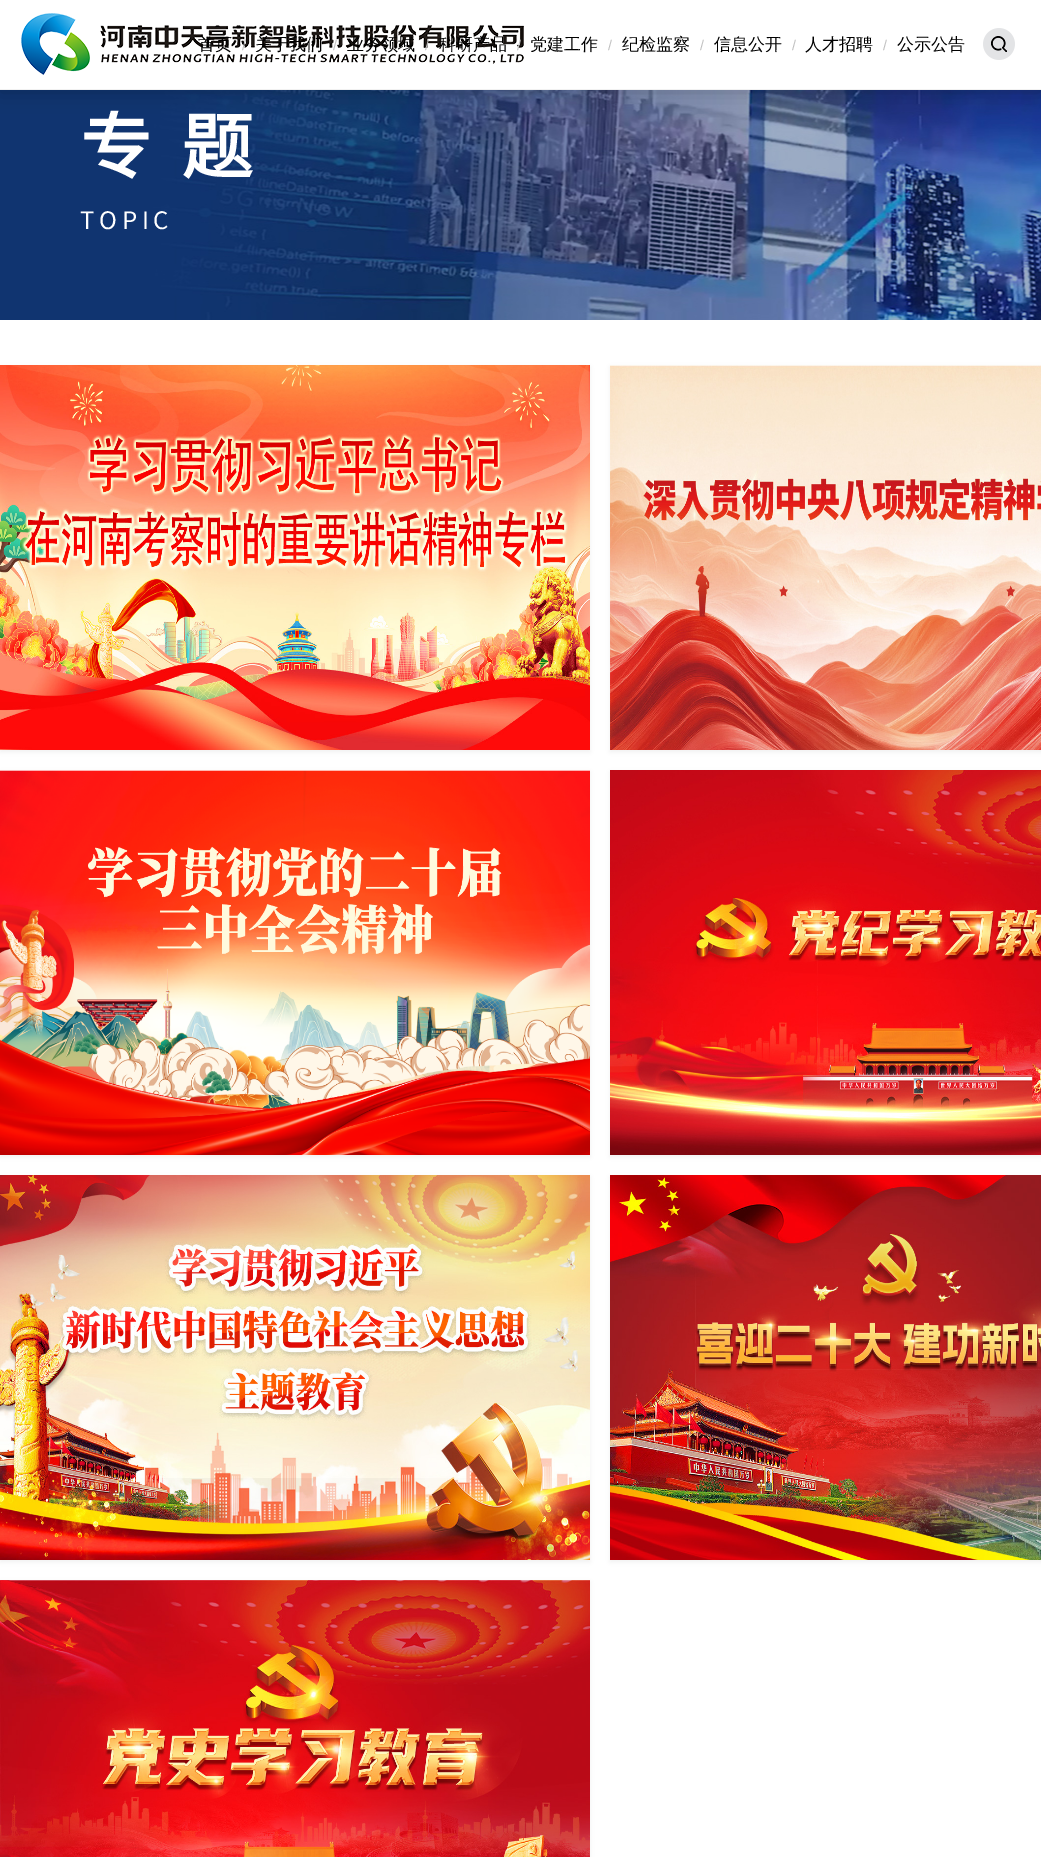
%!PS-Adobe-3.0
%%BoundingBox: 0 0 1041 1857
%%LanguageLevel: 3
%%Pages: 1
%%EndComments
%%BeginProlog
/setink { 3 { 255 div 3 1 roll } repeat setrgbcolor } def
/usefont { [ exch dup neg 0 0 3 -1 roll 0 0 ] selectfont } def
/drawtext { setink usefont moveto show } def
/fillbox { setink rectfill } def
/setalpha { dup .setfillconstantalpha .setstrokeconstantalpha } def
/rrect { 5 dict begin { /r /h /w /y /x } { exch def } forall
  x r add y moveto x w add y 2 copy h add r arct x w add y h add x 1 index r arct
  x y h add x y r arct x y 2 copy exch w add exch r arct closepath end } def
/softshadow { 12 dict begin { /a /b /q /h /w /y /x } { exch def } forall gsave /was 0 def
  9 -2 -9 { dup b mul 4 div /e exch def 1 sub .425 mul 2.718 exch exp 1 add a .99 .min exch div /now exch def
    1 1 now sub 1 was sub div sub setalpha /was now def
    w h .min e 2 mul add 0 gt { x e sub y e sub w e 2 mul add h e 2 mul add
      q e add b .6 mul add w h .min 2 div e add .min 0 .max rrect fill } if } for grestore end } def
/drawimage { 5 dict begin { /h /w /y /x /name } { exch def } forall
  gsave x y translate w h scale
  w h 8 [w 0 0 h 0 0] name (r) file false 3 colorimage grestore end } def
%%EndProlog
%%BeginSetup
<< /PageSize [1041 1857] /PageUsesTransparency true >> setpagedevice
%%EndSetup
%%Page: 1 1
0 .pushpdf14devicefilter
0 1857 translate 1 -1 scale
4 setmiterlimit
0 0 1041 1857 255 255 255 fillbox
(assets/img3.rgb) 0 90 1041 230 drawimage
0 0 0 setink
0 2 1041 90 0 10 0.22 softshadow
0 0 1041 89 255 255 255 fillbox
0 89 1041 1 241 241 241 fillbox
(assets/img1.rgb) 21 13 503 62 drawimage
(首页) 198 50 /WenQuanYiZenHei-Medium 17 0 0 0 drawtext
(/) 242 50 /LiberationSans-Regular 14 191 191 191 drawtext
(关于我们) 255 50 /WenQuanYiZenHei-Medium 17 0 0 0 drawtext
(/) 333 50 /LiberationSans-Regular 14 191 191 191 drawtext
(业务领域) 347 50 /WenQuanYiZenHei-Medium 17 0 0 0 drawtext
(/) 425 50 /LiberationSans-Regular 14 191 191 191 drawtext
(科研产品) 439 50 /WenQuanYiZenHei-Medium 17 0 0 0 drawtext
(/) 517 50 /LiberationSans-Regular 14 191 191 191 drawtext
(党建工作) 530 50 /WenQuanYiZenHei-Medium 17 0 0 0 drawtext
(/) 608 50 /LiberationSans-Regular 14 191 191 191 drawtext
(纪检监察) 622 50 /WenQuanYiZenHei-Medium 17 0 0 0 drawtext
(/) 700 50 /LiberationSans-Regular 14 191 191 191 drawtext
(信息公开) 714 50 /WenQuanYiZenHei-Medium 17 0 0 0 drawtext
(/) 792 50 /LiberationSans-Regular 14 191 191 191 drawtext
(人才招聘) 805 50 /WenQuanYiZenHei-Medium 17 0 0 0 drawtext
(/) 883 50 /LiberationSans-Regular 14 191 191 191 drawtext
(公示公告) 897 50 /WenQuanYiZenHei-Medium 17 0 0 0 drawtext
(assets/img2.rgb) 983 28 32 32 drawimage
/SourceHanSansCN-Bold 72 usefont
255 255 255 setink
80 173 moveto 29 0 (专题) ashow
/SourceHanSansCN-Regular 24 usefont
80 229 moveto 4.75 0 (TOPIC) ashow
0 0 0 setink
0 367 590 385 0 2.5 0.05 softshadow
(assets/img4.rgb) 0 365 590 385 drawimage
610 367 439 385 0 2.5 0.05 softshadow
(assets/img5.rgb) 610 365 431 385 drawimage
0 772 590 385 0 2.5 0.05 softshadow
(assets/img6.rgb) 0 770 590 385 drawimage
610 772 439 385 0 2.5 0.05 softshadow
(assets/img7.rgb) 610 770 431 385 drawimage
0 1177 590 385 0 2.5 0.05 softshadow
(assets/img8.rgb) 0 1175 590 385 drawimage
610 1177 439 385 0 2.5 0.05 softshadow
(assets/img9.rgb) 610 1175 431 385 drawimage
0 1582 590 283 0 2.5 0.05 softshadow
(assets/img10.rgb) 0 1580 590 277 drawimage
.poppdf14devicefilter showpage
%%EOF
